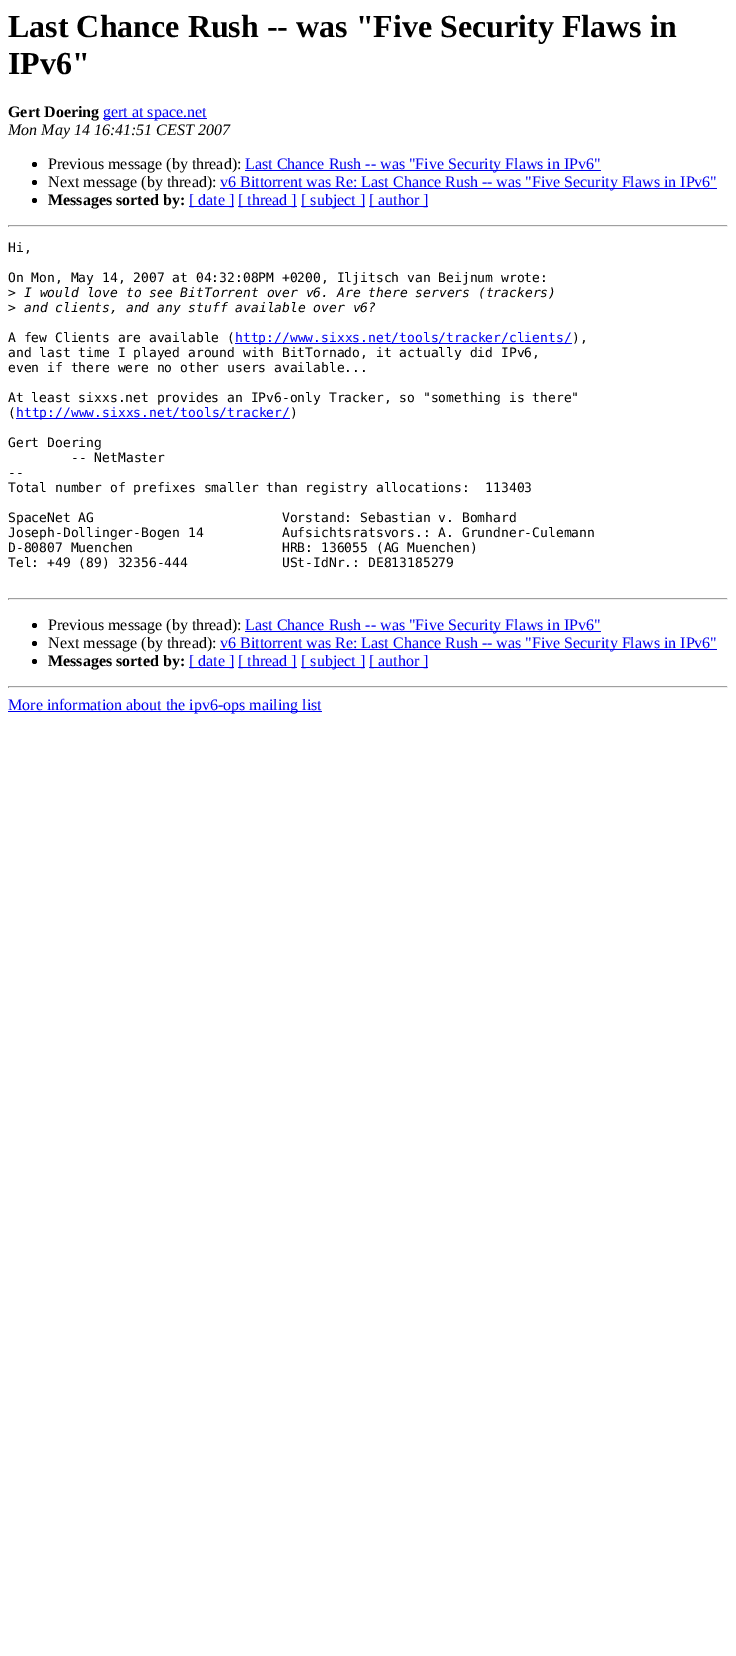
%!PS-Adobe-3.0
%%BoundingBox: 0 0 736 1656
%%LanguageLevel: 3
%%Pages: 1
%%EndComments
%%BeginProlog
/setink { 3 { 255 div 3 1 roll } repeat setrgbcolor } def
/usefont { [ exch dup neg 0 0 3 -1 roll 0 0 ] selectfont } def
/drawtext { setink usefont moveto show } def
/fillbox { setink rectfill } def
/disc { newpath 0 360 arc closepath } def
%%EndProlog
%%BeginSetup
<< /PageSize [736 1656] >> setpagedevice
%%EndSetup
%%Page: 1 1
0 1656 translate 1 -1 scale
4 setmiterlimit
0 0 736 1656 255 255 255 fillbox
(Last Chance Rush -- was "Five Security Flaws in) 8 37 /LiberationSerif-Bold 32 0 0 0 drawtext
(IPv6") 8 74 /LiberationSerif-Bold 32 0 0 0 drawtext
(Gert Doering) 8 117 /LiberationSerif-Bold 16 0 0 0 drawtext
103 118 104 1 0 0 238 fillbox
(gert at space.net) 103 117 /LiberationSerif-Regular 16 0 0 238 drawtext
(Mon May 14 16:41:51 CEST 2007) 8 135 /LiberationSerif-Italic 16 0 0 0 drawtext
34.5 164.5 2.5 disc fill
(Previous message \(by thread\):) 48 169 /LiberationSerif-Regular 16 0 0 0 drawtext
245 170 356 1 0 0 238 fillbox
(Last Chance Rush -- was "Five Security Flaws in IPv6") 245 169 /LiberationSerif-Regular 16 0 0 238 drawtext
0 0 0 setink
34.5 182.5 2.5 disc fill
(Next message \(by thread\):) 48 187 /LiberationSerif-Regular 16 0 0 0 drawtext
220 188 497 1 0 0 238 fillbox
(v6 Bittorrent was Re: Last Chance Rush -- was "Five Security Flaws in IPv6") 220 187 /LiberationSerif-Regular 16 0 0 238 drawtext
0 0 0 setink
34.5 200.5 2.5 disc fill
(Messages sorted by:) 48 205 /LiberationSerif-Bold 16 0 0 0 drawtext
189 206 45 1 0 0 238 fillbox
([ date ]) 189 205 /LiberationSerif-Regular 16 0 0 238 drawtext
238 206 59 1 0 0 238 fillbox
([ thread ]) 238 205 /LiberationSerif-Regular 16 0 0 238 drawtext
301 206 64 1 0 0 238 fillbox
([ subject ]) 301 205 /LiberationSerif-Regular 16 0 0 238 drawtext
369 206 59 1 0 0 238 fillbox
([ author ]) 369 205 /LiberationSerif-Regular 16 0 0 238 drawtext
8 225 720 1 159 159 159 fillbox
727 225 1 2 238 238 238 fillbox
8 226 720 1 238 238 238 fillbox
8 225 1 2 159 159 159 fillbox
(Hi,) 8 252 /DejaVuSansMono-Regular 13 0 0 0 drawtext
(On Mon, May 14, 2007 at 04:32:08PM +0200, Iljitsch van Beijnum wrote:) 8 282 /DejaVuSansMono-Regular 13 0 0 0 drawtext
(>) 8 297 /DejaVuSansMono-Regular 13 0 0 0 drawtext
(I would love to see BitTorrent over v6. Are there servers \(trackers\)) 24 297 /DejaVuSansMono-Italic 13 0 0 0 drawtext
(>) 8 312 /DejaVuSansMono-Regular 13 0 0 0 drawtext
(and clients, and any stuff available over v6?) 24 312 /DejaVuSansMono-Italic 13 0 0 0 drawtext
(A few Clients are available \() 8 342 /DejaVuSansMono-Regular 13 0 0 0 drawtext
235 343 337 1 0 0 238 fillbox
(http://www.sixxs.net/tools/tracker/clients/) 235 342 /DejaVuSansMono-Regular 13 0 0 238 drawtext
(\),) 572 342 /DejaVuSansMono-Regular 13 0 0 0 drawtext
(and last time I played around with BitTornado, it actually did IPv6,) 8 357 /DejaVuSansMono-Regular 13 0 0 0 drawtext
(even if there were no other users available...) 8 372 /DejaVuSansMono-Regular 13 0 0 0 drawtext
(At least sixxs.net provides an IPv6-only Tracker, so "something is there") 8 402 /DejaVuSansMono-Regular 13 0 0 0 drawtext
(\() 8 417 /DejaVuSansMono-Regular 13 0 0 0 drawtext
16 418 274 1 0 0 238 fillbox
(http://www.sixxs.net/tools/tracker/) 16 417 /DejaVuSansMono-Regular 13 0 0 238 drawtext
(\)) 290 417 /DejaVuSansMono-Regular 13 0 0 0 drawtext
(Gert Doering) 8 447 /DejaVuSansMono-Regular 13 0 0 0 drawtext
(-- NetMaster) 71 462 /DejaVuSansMono-Regular 13 0 0 0 drawtext
(--) 8 477 /DejaVuSansMono-Regular 13 0 0 0 drawtext
(Total number of prefixes smaller than registry allocations:  113403) 8 492 /DejaVuSansMono-Regular 13 0 0 0 drawtext
(SpaceNet AG                        Vorstand: Sebastian v. Bomhard) 8 522 /DejaVuSansMono-Regular 13 0 0 0 drawtext
(Joseph-Dollinger-Bogen 14          Aufsichtsratsvors.: A. Grundner-Culemann) 8 537 /DejaVuSansMono-Regular 13 0 0 0 drawtext
(D-80807 Muenchen                   HRB: 136055 \(AG Muenchen\)) 8 552 /DejaVuSansMono-Regular 13 0 0 0 drawtext
(Tel: +49 \(89\) 32356-444            USt-IdNr.: DE813185279) 8 567 /DejaVuSansMono-Regular 13 0 0 0 drawtext
8 598 720 1 159 159 159 fillbox
727 598 1 2 238 238 238 fillbox
8 599 720 1 238 238 238 fillbox
8 598 1 2 159 159 159 fillbox
0 0 0 setink
34.5 625.5 2.5 disc fill
(Previous message \(by thread\):) 48 630 /LiberationSerif-Regular 16 0 0 0 drawtext
245 631 356 1 0 0 238 fillbox
(Last Chance Rush -- was "Five Security Flaws in IPv6") 245 630 /LiberationSerif-Regular 16 0 0 238 drawtext
0 0 0 setink
34.5 643.5 2.5 disc fill
(Next message \(by thread\):) 48 648 /LiberationSerif-Regular 16 0 0 0 drawtext
220 649 497 1 0 0 238 fillbox
(v6 Bittorrent was Re: Last Chance Rush -- was "Five Security Flaws in IPv6") 220 648 /LiberationSerif-Regular 16 0 0 238 drawtext
0 0 0 setink
34.5 661.5 2.5 disc fill
(Messages sorted by:) 48 666 /LiberationSerif-Bold 16 0 0 0 drawtext
189 667 45 1 0 0 238 fillbox
([ date ]) 189 666 /LiberationSerif-Regular 16 0 0 238 drawtext
238 667 59 1 0 0 238 fillbox
([ thread ]) 238 666 /LiberationSerif-Regular 16 0 0 238 drawtext
301 667 64 1 0 0 238 fillbox
([ subject ]) 301 666 /LiberationSerif-Regular 16 0 0 238 drawtext
369 667 59 1 0 0 238 fillbox
([ author ]) 369 666 /LiberationSerif-Regular 16 0 0 238 drawtext
8 686 720 1 159 159 159 fillbox
727 686 1 2 238 238 238 fillbox
8 687 720 1 238 238 238 fillbox
8 686 1 2 159 159 159 fillbox
8 711 314 1 0 0 238 fillbox
(More information about the ipv6-ops mailing list) 8 710 /LiberationSerif-Regular 16 0 0 238 drawtext
showpage
%%EOF
